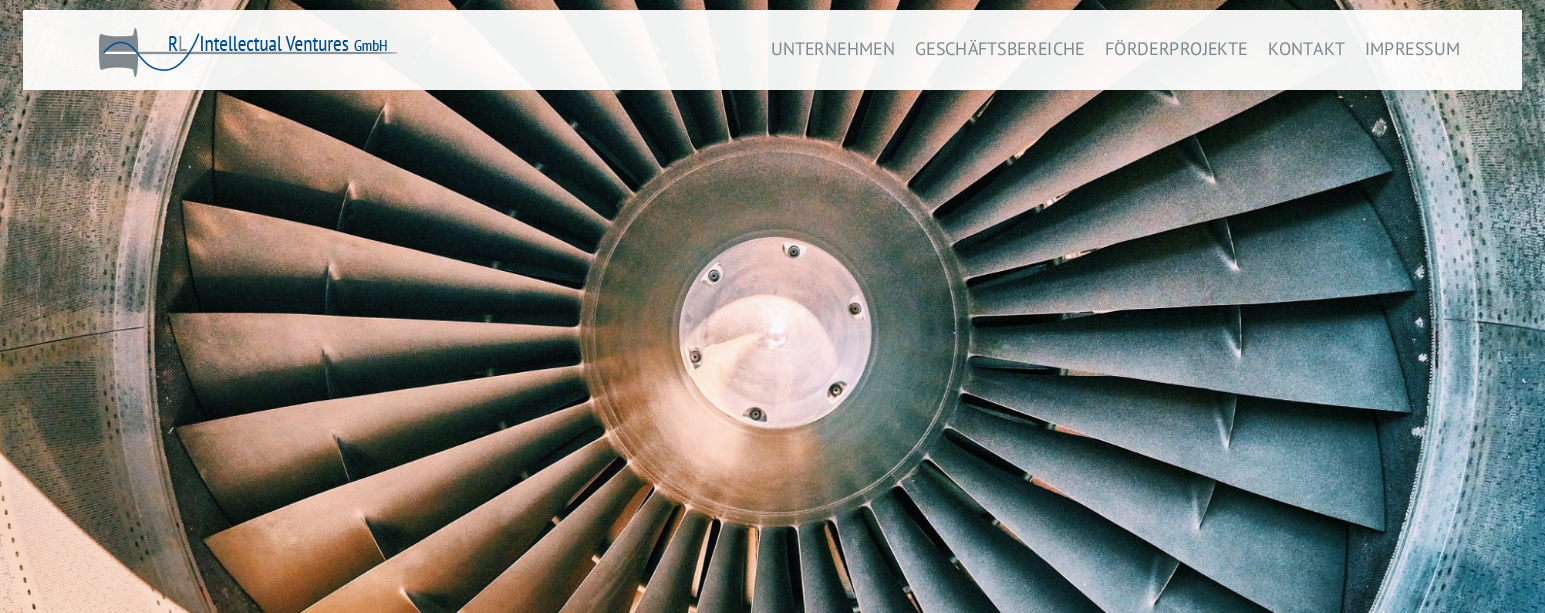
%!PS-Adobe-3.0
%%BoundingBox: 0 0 1545 613
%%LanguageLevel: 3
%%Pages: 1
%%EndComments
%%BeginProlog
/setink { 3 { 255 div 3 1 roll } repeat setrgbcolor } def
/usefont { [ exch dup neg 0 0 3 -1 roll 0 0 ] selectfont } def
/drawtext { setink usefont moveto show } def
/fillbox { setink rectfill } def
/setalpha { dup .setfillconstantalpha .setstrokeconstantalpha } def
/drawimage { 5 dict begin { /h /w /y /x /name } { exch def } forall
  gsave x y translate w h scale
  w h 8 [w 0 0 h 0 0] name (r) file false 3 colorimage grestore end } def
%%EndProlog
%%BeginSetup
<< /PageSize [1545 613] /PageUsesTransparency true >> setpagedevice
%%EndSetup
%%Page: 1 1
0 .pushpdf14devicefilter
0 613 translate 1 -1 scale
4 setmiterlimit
0 0 1545 613 255 255 255 fillbox
(assets/img1.rgb) 0 0 1545 613 drawimage
0.94 setalpha
23 10 1499 80 255 255 255 fillbox
1 setalpha
(assets/img2.rgb) 99 28 298 49 drawimage
(UNTERNEHMEN) 771 55 /PTSans-Regular 18 127 136 141 drawtext
(GESCHÄFTSBEREICHE) 915 55 /PTSans-Regular 18 127 136 141 drawtext
(FÖRDERPROJEKTE) 1105 55 /PTSans-Regular 18 127 136 141 drawtext
(KONTAKT) 1268 55 /PTSans-Regular 18 127 136 141 drawtext
(IMPRESSUM) 1365 55 /PTSans-Regular 18 127 136 141 drawtext
.poppdf14devicefilter showpage
%%EOF
